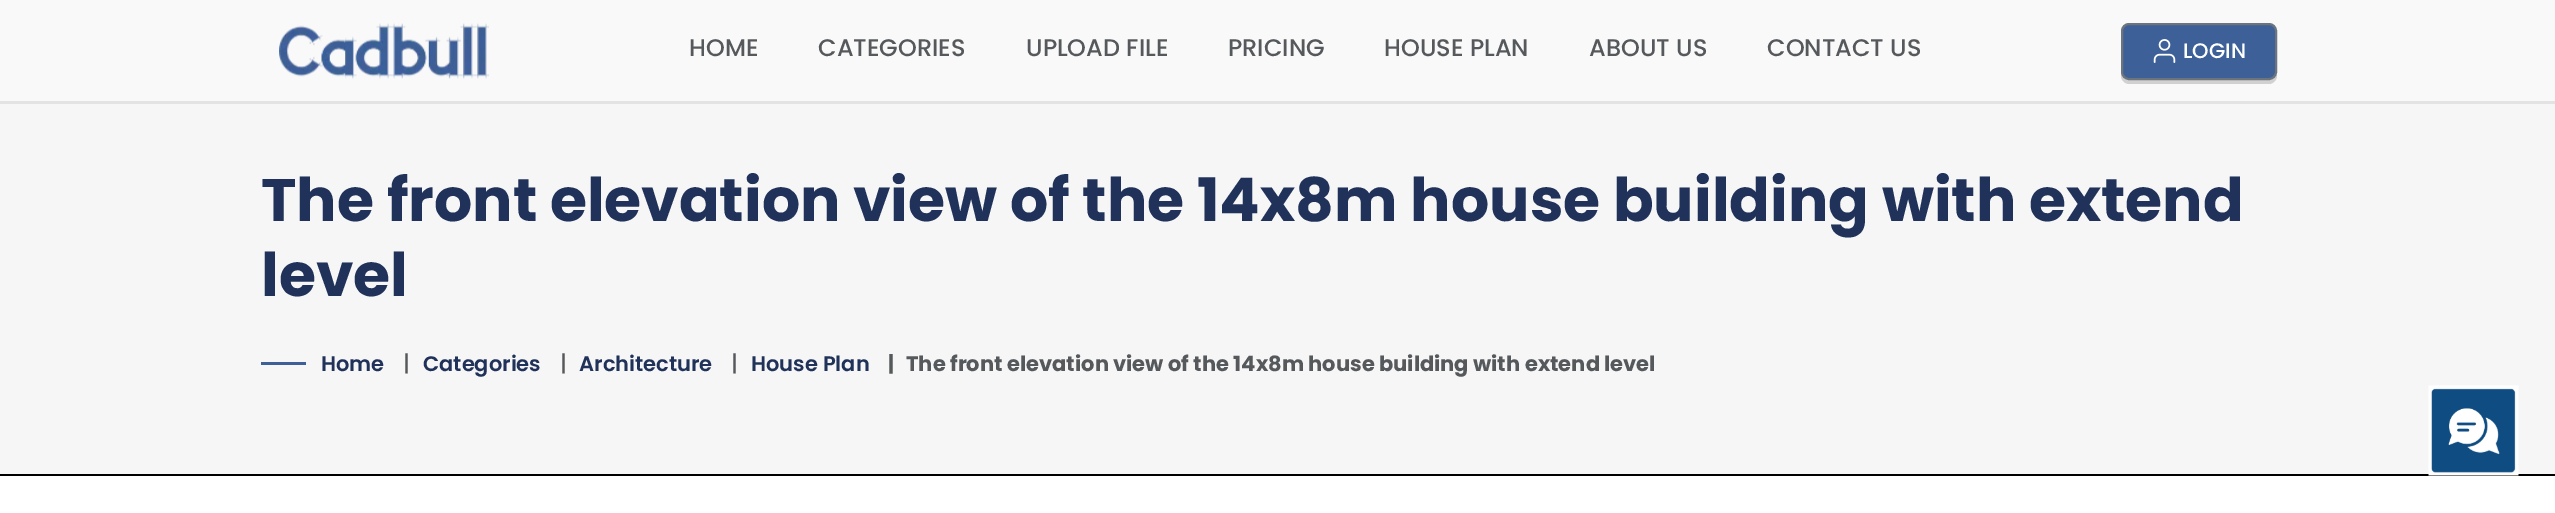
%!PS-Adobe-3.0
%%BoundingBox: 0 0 2555 513
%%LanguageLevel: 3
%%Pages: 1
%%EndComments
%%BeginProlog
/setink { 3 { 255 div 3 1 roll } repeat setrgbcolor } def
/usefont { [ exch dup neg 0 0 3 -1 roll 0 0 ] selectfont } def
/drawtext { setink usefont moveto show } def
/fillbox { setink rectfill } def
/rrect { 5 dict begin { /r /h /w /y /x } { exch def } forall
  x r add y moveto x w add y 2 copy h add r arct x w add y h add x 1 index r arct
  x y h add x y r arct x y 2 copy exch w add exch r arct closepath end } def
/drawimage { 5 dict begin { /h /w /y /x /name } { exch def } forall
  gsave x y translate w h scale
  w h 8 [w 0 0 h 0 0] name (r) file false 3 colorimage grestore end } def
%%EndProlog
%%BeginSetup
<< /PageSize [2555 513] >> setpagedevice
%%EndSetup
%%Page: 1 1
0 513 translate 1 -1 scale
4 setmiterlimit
0 0 2555 513 255 255 255 fillbox
0 0 2555 101 249 249 249 fillbox
0 101 2555 3 227 227 227 fillbox
(assets/img1.rgb) 279 23 210 56 drawimage
(HOME) 689 56 /Poppins-Medium 24 86 89 92 drawtext
(CATEGORIES) 818 56 /Poppins-Medium 24 86 89 92 drawtext
(UPLOAD FILE) 1026 56 /Poppins-Medium 24 86 89 92 drawtext
(PRICING) 1228 56 /Poppins-Medium 24 86 89 92 drawtext
(HOUSE PLAN) 1384 56 /Poppins-Medium 24 86 89 92 drawtext
(ABOUT US) 1589 56 /Poppins-Medium 24 86 89 92 drawtext
(CONTACT US) 1767 56 /Poppins-Medium 24 86 89 92 drawtext
209 209 209 setink
2121 72 moveto 2121 76 lineto 2121 80 2125 84 2129 84 curveto 2269 84 lineto 2273 84 2277 80 2277 76 curveto 2277 72 lineto 2277 76 2274 80 2270 80 curveto 2128 80 lineto 2124 80 2121 76 2121 72 curveto closepath fill
61 96 152 setink
2122 24 154 55 7 rrect gsave fill grestore
108 117 125 setink
2 setlinewidth
stroke
(assets/img2.rgb) 2153 39 23 24 drawimage
(LOGIN) 2183 58 /Poppins-Medium 21 255 255 255 drawtext
0 104 2555 370 246 246 246 fillbox
0 474 2555 2 0 0 0 fillbox
(The front elevation view of the 14x8m house building with extend) 261 221 /Poppins-Bold 60 32 50 90 drawtext
(level) 261 296 /Poppins-Bold 60 32 50 90 drawtext
261 362 45 3 61 96 152 fillbox
(Home) 321 371 /Poppins-SemiBold 21 32 50 90 drawtext
(|) 403 371 /Poppins-Medium 22 86 89 92 drawtext
(Categories) 423 371 /Poppins-SemiBold 21 32 50 90 drawtext
(|) 560 371 /Poppins-Medium 22 86 89 92 drawtext
(Architecture) 579 371 /Poppins-SemiBold 21 32 50 90 drawtext
(|) 731 371 /Poppins-Medium 22 86 89 92 drawtext
(House Plan) 751 371 /Poppins-SemiBold 21 32 50 90 drawtext
(|) 888 371 /Poppins-Bold 21 86 89 92 drawtext
(The front elevation view of the 14x8m house building with extend level) 906 371 /Poppins-Bold 21 86 89 92 drawtext
(assets/img3.rgb) 2428 385 91 91 drawimage
showpage
%%EOF
